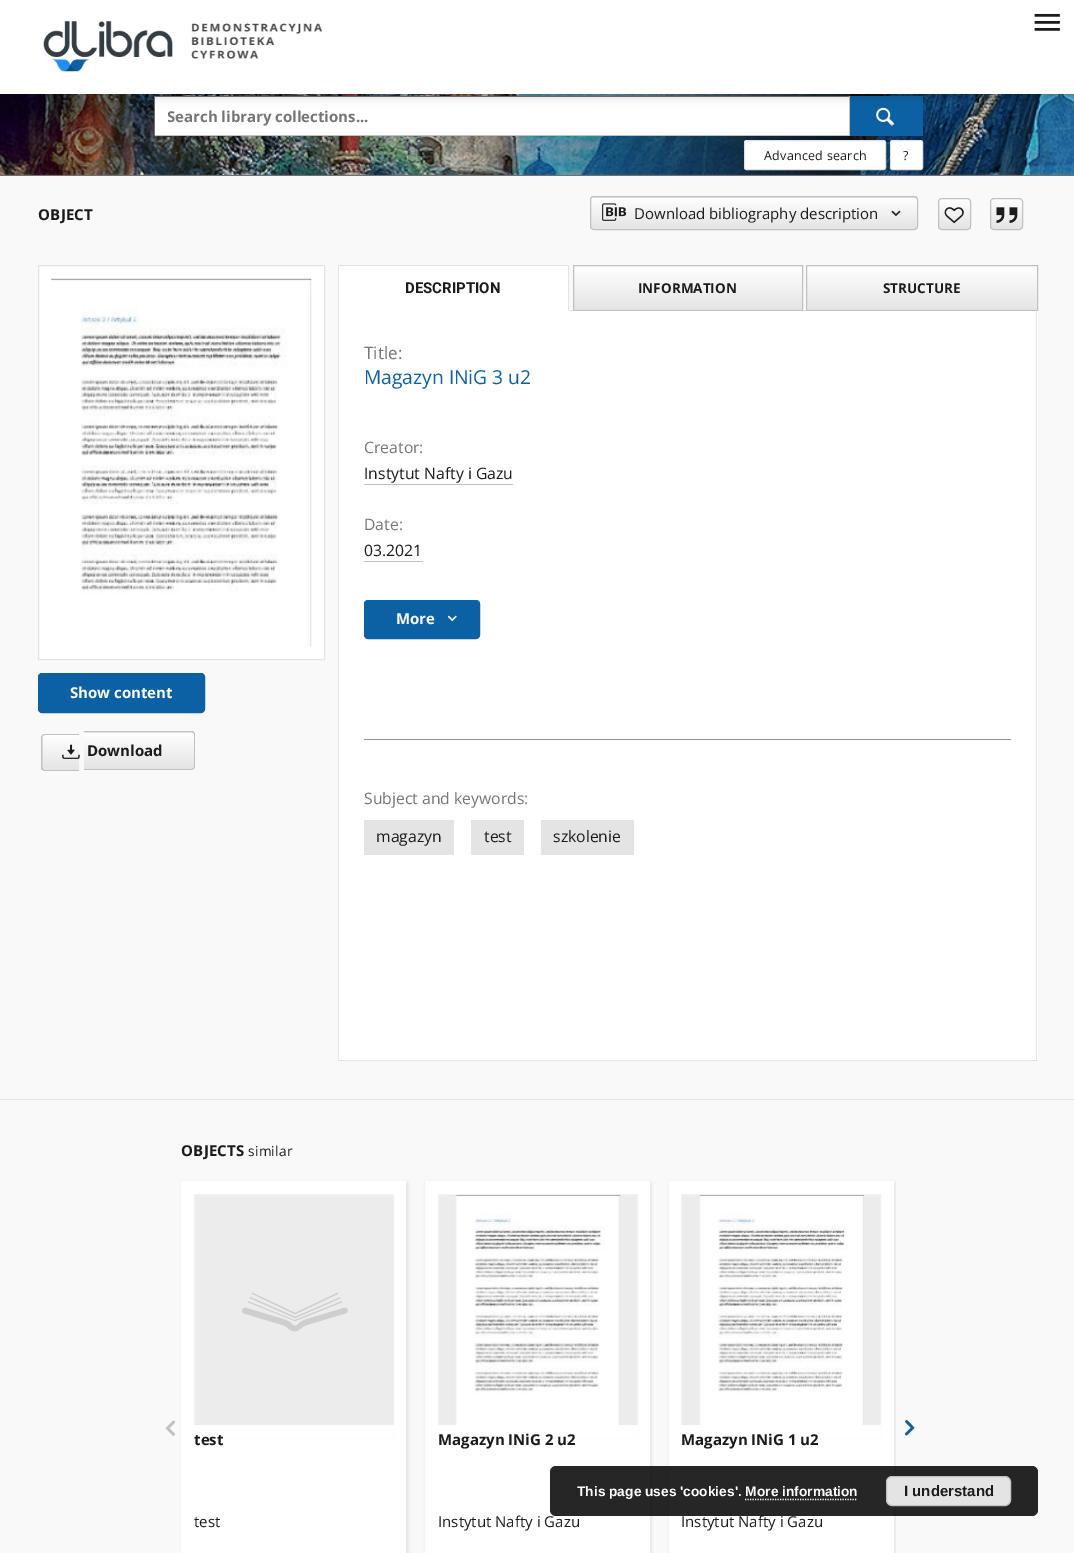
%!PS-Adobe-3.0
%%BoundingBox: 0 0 1074 1553
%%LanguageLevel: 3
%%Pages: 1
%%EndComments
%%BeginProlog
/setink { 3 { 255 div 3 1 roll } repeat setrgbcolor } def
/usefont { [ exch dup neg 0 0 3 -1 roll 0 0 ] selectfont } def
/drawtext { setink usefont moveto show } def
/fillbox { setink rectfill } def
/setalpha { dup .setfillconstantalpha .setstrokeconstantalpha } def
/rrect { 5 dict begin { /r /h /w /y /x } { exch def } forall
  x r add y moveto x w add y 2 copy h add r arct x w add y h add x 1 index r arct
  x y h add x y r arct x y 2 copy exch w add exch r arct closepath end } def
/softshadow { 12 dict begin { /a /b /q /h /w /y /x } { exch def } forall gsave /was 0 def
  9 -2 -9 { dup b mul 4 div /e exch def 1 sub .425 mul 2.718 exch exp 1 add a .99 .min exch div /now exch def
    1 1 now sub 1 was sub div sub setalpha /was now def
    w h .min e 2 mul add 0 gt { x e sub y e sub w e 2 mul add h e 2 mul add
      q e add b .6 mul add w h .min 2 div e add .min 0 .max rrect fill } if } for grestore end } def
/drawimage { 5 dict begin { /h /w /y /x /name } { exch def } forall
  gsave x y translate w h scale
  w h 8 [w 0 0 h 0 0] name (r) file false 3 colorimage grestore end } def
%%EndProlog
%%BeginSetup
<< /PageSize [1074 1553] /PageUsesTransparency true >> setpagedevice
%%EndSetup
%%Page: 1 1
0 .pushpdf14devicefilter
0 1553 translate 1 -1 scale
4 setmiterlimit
0 0 1074 1553 249 249 249 fillbox
(assets/img3.rgb) 0 94 1074 81 drawimage
155 97 694 38 255 255 255 fillbox
154 96 696 1 112 112 112 fillbox
849 96 1 40 193 193 193 fillbox
154 135 696 1 193 193 193 fillbox
154 96 1 40 112 112 112 fillbox
850 96 73 40 12 97 165 fillbox
(assets/img4.rgb) 876 107 18 19 drawimage
0 0 0 setink
0 1 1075 94 0 6 0.08 softshadow
0 5 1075 94 0 3 0.06 softshadow
1 4 1073 91 0 2.5 0.06 softshadow
0 0 1074 94 255 255 255 fillbox
(assets/img1.rgb) 43 21 279 51 drawimage
(assets/img2.rgb) 1034 13 26 18 drawimage
0 175 1074 1 112 112 112 fillbox
gsave
168 106 668 22 rectclip
(Search library collections...) 167 122 /OpenSans-Bold 15 117 117 117 drawtext
grestore
255 255 255 setink
744.5 140.5 141 29 2 rrect gsave fill grestore
226 226 226 setink
stroke
/OpenSans-Regular 12.5 usefont
26 27 28 setink
764 160 moveto 0.25 0 (Advanced search) ashow
255 255 255 setink
890.5 140.5 32 29 2 rrect gsave fill grestore
226 226 226 setink
stroke
(?) 903 160 /OpenSans-Regular 12.5 26 27 28 drawtext
/OpenSans-Bold 15 usefont
38 220 moveto 0.25 0 (OBJECT) ashow
gsave
590 196 328 34 4 rrect clip newpath
gsave 590 196 moveto 918 196 lineto 918 198 lineto 590 198 lineto closepath clip newpath
<< /ShadingType 2 /ColorSpace /DeviceRGB /Coords [754 166 754 198] /Extend [true true] /Function << /FunctionType 2 /Domain [0 1] /C0 [1 1 1] /C1 [0.894 0.894 0.894] /N 1 >> >> shfill grestore
gsave 590 198 moveto 918 198 lineto 918 229 lineto 590 229 lineto closepath clip newpath
<< /ShadingType 2 /ColorSpace /DeviceRGB /Coords [754 197 754 229] /Extend [true true] /Function << /FunctionType 2 /Domain [0 1] /C0 [1 1 1] /C1 [0.894 0.894 0.894] /N 1 >> >> shfill grestore
grestore
193 193 193 setink
590.5 196.5 327 33 3.5 rrect stroke
(assets/img5.rgb) 602 203 25 18 drawimage
(Download bibliography description) 634 219 /OpenSans-Regular 15 26 27 28 drawtext
(assets/img6.rgb) 891 210 10 7 drawimage
gsave
938 198 33 32 4 rrect clip newpath
gsave 938 199 moveto 971 199 lineto 971 229 lineto 938 229 lineto closepath clip newpath
<< /ShadingType 2 /ColorSpace /DeviceRGB /Coords [954 199 954 229] /Extend [true true] /Function << /FunctionType 2 /Domain [0 1] /C0 [1 1 1] /C1 [0.894 0.894 0.894] /N 1 >> >> shfill grestore
grestore
193 193 193 setink
938.5 198.5 32 31 3.5 rrect stroke
(assets/img7.rgb) 944 207 20 17 drawimage
gsave
990 198 33 32 4 rrect clip newpath
gsave 990 199 moveto 1023 199 lineto 1023 229 lineto 990 229 lineto closepath clip newpath
<< /ShadingType 2 /ColorSpace /DeviceRGB /Coords [1006 199 1006 229] /Extend [true true] /Function << /FunctionType 2 /Domain [0 1] /C0 [1 1 1] /C1 [0.894 0.894 0.894] /N 1 >> >> shfill grestore
grestore
990.5 198.5 32 31 3.5 rrect stroke
(assets/img8.rgb) 996 207 22 16 drawimage
255 255 255 setink
38.5 265.5 moveto 324.5 265.5 lineto 324.5 659.5 lineto 38.5 659.5 lineto closepath gsave fill grestore
228 228 228 setink
stroke
(assets/img9.rgb) 51 278 261 369 drawimage
12 97 165 setink
38.5 673.5 166 39 3.5 rrect gsave fill grestore
stroke
(Show content) 70 698 /OpenSans-Bold 15 255 255 255 drawtext
gsave
45 734 moveto 79 734 lineto 79 771 lineto 45 771 lineto 43 771 41 769 41 767 curveto 41 738 lineto 41 736 43 734 45 734 curveto closepath clip newpath
gsave 41 735 moveto 79 735 lineto 79 770 lineto 41 770 lineto closepath clip newpath
<< /ShadingType 2 /ColorSpace /DeviceRGB /Coords [61 735 61 770] /Extend [true true] /Function << /FunctionType 2 /Domain [0 1] /C0 [1 1 1] /C1 [0.894 0.894 0.894] /N 1 >> >> shfill grestore
grestore
193 193 193 setink
45 734 moveto 79 734 lineto 79 771 lineto 45 771 lineto 43 771 41 769.5 41 767.5 curveto 41 737.5 lineto 41 735.5 43 734 45 734 curveto closepath 45 735 moveto 79 735 lineto 79 770 lineto 45 770 lineto 43.5 770 42.5 769 42.5 767.5 curveto 42.5 737.5 lineto 42.5 736 43.5 735 45 735 curveto closepath eofill
gsave
84 731 moveto 191 731 lineto 193 731 195 733 195 735 curveto 195 766 lineto 195 768 193 770 191 770 curveto 84 770 lineto closepath clip newpath
gsave 84 731 moveto 195 731 lineto 195 733 lineto 84 733 lineto closepath clip newpath
<< /ShadingType 2 /ColorSpace /DeviceRGB /Coords [139 696 139 733] /Extend [true true] /Function << /FunctionType 2 /Domain [0 1] /C0 [1 1 1] /C1 [0.894 0.894 0.894] /N 1 >> >> shfill grestore
gsave 84 733 moveto 195 733 lineto 195 769 lineto 84 769 lineto closepath clip newpath
<< /ShadingType 2 /ColorSpace /DeviceRGB /Coords [139 733 139 769] /Extend [true true] /Function << /FunctionType 2 /Domain [0 1] /C0 [1 1 1] /C1 [0.894 0.894 0.894] /N 1 >> >> shfill grestore
grestore
84 731 moveto 191 731 lineto 193 731 195 733 195 735 curveto 195 766 lineto 195 768 193 770 191 770 curveto 84 770 lineto closepath 84 732 moveto 191 732 lineto 193 732 194 734 194 735 curveto 194 766 lineto 194 768 193 769 191 769 curveto 84 769 lineto closepath eofill
(assets/img10.rgb) 62 744 18 15 drawimage
(Download) 87 756 /OpenSans-Bold 15 26 27 28 drawtext
569 310 237 1 228 228 228 fillbox
338 266 231 45 255 255 255 fillbox
338 265 231 1 228 228 228 fillbox
569 265 moveto 569 311 lineto 568 310 lineto 568 266 lineto closepath fill
338 311 moveto 338 265 lineto 339 266 lineto 339 310 lineto closepath fill
(DESCRIPTION) 405 293 /Roboto-Bold 15 26 27 28 drawtext
gsave 574 266 moveto 802 266 lineto 802 310 lineto 574 310 lineto closepath clip newpath
<< /ShadingType 2 /ColorSpace /DeviceRGB /Coords [688 266 688 310] /Extend [true true] /Function << /FunctionType 2 /Domain [0 1] /C0 [1 1 1] /C1 [0.894 0.894 0.894] /N 1 >> >> shfill grestore
193 193 193 setink
573.5 265.5 229 45 rectstroke
(INFORMATION) 638 293 /OpenSans-Bold 13.5 26 27 28 drawtext
gsave 807 266 moveto 1037 266 lineto 1037 310 lineto 807 310 lineto closepath clip newpath
<< /ShadingType 2 /ColorSpace /DeviceRGB /Coords [922 266 922 310] /Extend [true true] /Function << /FunctionType 2 /Domain [0 1] /C0 [1 1 1] /C1 [0.894 0.894 0.894] /N 1 >> >> shfill grestore
193 193 193 setink
806.5 265.5 231 45 rectstroke
(STRUCTURE) 883 293 /OpenSans-Bold 13.5 26 27 28 drawtext
339 311 699 749 255 255 255 fillbox
1036 311 1 750 228 228 228 fillbox
338 1060 700 1 228 228 228 fillbox
338 311 1 750 228 228 228 fillbox
(Title:) 364 359 /OpenSans-Regular 17 117 117 117 drawtext
(Magazyn INiG 3 u2) 364 384 /OpenSans-Regular 19.25 12 97 165 drawtext
(Creator:) 364 453 /OpenSans-Regular 15.75 117 117 117 drawtext
(Instytut Nafty i Gazu) 364 479 /OpenSans-Regular 15.75 26 27 28 drawtext
364 484 149 1 193 193 193 fillbox
(Date:) 364 530 /OpenSans-Regular 15.75 117 117 117 drawtext
(03.2021) 364 556 /OpenSans-Regular 15.75 26 27 28 drawtext
364 561 59 1 193 193 193 fillbox
12 97 165 setink
364.5 600.5 115 38 3.5 rrect gsave fill grestore
stroke
(More) 396 624 /OpenSans-Bold 15 255 255 255 drawtext
(assets/img11.rgb) 447 615 10 7 drawimage
364 739 647 1 147 147 147 fillbox
(Subject and keywords:) 364 804 /OpenSans-Regular 15.75 117 117 117 drawtext
364 820 90 35 228 228 228 fillbox
(magazyn) 376 842 /OpenSans-Regular 15.75 26 27 28 drawtext
471 820 53 35 228 228 228 fillbox
(test) 484 842 /OpenSans-Regular 15.75 26 27 28 drawtext
541 820 93 35 228 228 228 fillbox
(szkolenie) 553 842 /OpenSans-Regular 15.75 26 27 28 drawtext
0 1099 1074 1 228 228 228 fillbox
/OpenSans-Bold 15 usefont
26 27 28 setink
181 1156 moveto 0.25 0 (OBJECTS) ashow
/OpenSans-Regular 13.75 usefont
248 1156 moveto 0.25 0 (similar) ashow
(assets/img12.rgb) 165 1420 10 16 drawimage
(assets/img13.rgb) 905 1420 10 16 drawimage
222 222 222 setink
183 1183 225 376 0 2 1 softshadow
181 1181 225 372 255 255 255 fillbox
195 1195 198 230 236 236 236 fillbox
241 241 241 setink
194.5 1194.5 199 243 rectstroke
(assets/img14.rgb) 242 1292 106 40 drawimage
194 1425 200 13 255 255 255 fillbox
(test) 194 1445 /OpenSans-Bold 15 26 27 28 drawtext
(test) 194 1527 /OpenSans-Regular 15 26 27 28 drawtext
222 222 222 setink
426 1183 225 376 0 2 1 softshadow
425 1181 225 372 255 255 255 fillbox
439 1195 198 230 236 236 236 fillbox
241 241 241 setink
438.5 1194.5 199 243 rectstroke
(assets/img15.rgb) 455 1195 166 230 drawimage
438 1425 200 13 255 255 255 fillbox
(Magazyn INiG 2 u2) 438 1445 /OpenSans-Bold 15 26 27 28 drawtext
(Instytut Nafty i Gazu) 438 1527 /OpenSans-Regular 15 26 27 28 drawtext
gsave
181 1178 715 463 rectclip
222 222 222 setink
670 1183 225 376 0 2 1 softshadow
grestore
669 1181 225 372 255 255 255 fillbox
682 1195 198 230 236 236 236 fillbox
241 241 241 setink
681.5 1194.5 199 243 rectstroke
(assets/img16.rgb) 699 1195 165 230 drawimage
681 1425 200 13 255 255 255 fillbox
(Magazyn INiG 1 u2) 681 1445 /OpenSans-Bold 15 26 27 28 drawtext
(Instytut Nafty i Gazu) 681 1527 /OpenSans-Regular 15 26 27 28 drawtext
0.85 setalpha
0 0 0 setink
550 1466 488 50 6 rrect fill
1 setalpha
(This page uses 'cookies'. More information) 577 1496 /LiberationSans-Bold 13.75 255 255 255 drawtext
228 228 228 setink
886.5 1476.5 124 29 5.5 rrect gsave fill grestore
193 193 193 setink
stroke
(I understand) 904 1496 /LiberationSans-Bold 15 26 27 28 drawtext
255 255 255 setink
1.2 setlinewidth
[1.25 1.25] 0 setdash
745 1499.5 moveto 857.5 1499.5 lineto stroke
.poppdf14devicefilter showpage
%%EOF
